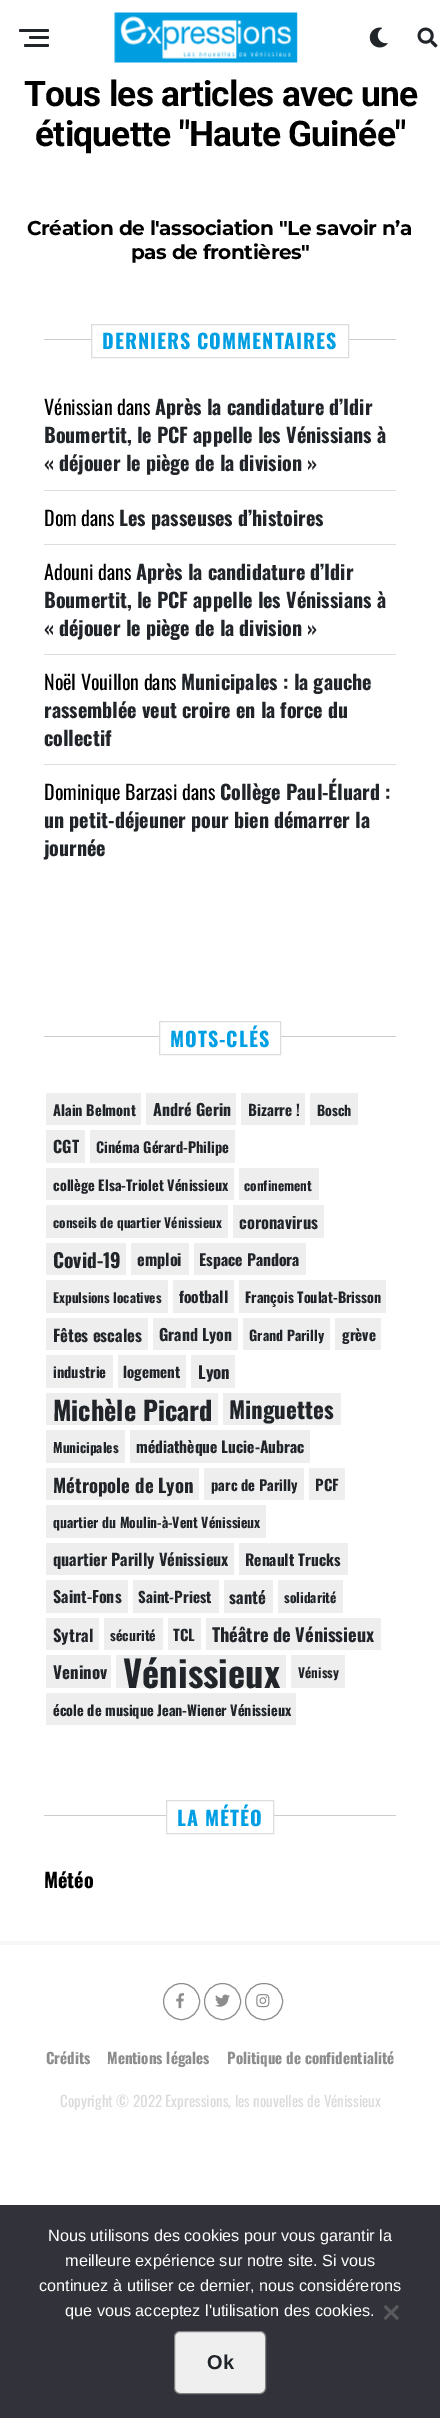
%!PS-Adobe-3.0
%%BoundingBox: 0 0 440 2418
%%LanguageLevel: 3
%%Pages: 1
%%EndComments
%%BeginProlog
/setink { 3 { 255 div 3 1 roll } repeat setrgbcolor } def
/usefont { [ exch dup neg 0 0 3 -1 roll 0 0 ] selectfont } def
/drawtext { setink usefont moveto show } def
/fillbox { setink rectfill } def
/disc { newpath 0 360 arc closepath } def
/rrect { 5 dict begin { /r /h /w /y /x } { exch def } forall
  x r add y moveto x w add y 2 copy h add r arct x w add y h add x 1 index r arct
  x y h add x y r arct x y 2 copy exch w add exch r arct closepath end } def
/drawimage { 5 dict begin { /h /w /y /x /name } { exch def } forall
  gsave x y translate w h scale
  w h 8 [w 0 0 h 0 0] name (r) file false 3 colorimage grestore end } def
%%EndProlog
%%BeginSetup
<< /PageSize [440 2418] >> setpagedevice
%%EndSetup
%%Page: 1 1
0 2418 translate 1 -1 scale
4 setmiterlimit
0 0 440 2418 255 255 255 fillbox
33 37 41 setink
19 29 30 3 1.5 rrect fill
29 36 20 3 1.5 rrect fill
24 44 25 3 1.5 rrect fill
(assets/img1.rgb) 114 12 184 51 drawimage
(assets/img2.rgb) 369 27 19 21 drawimage
(assets/img3.rgb) 417 27 21 21 drawimage
/Roboto-Bold 35.25 usefont
0 0 0 setink
24 106 moveto -0.7 0 (Tous les articles avec une) ashow
35 146 moveto -0.7 0 (étiquette "Haute Guinée") ashow
/Montserrat-Bold 20 usefont
27 235 moveto -0.4 0 (Création de l'association "Le savoir n’a) ashow
131 259 moveto -0.4 0 (pas de frontières") ashow
44 339 352 1 204 204 204 fillbox
92 339 256 1 255 255 255 fillbox
221 221 221 setink
91.5 324.5 257 33 rectstroke
/Oswald-Bold 20 usefont
0 159 227 setink
102 349 moveto 1 0 (DERNIERS COMMENTAIRES) ashow
(Vénissian dans) 44 415 /Oswald-Regular 20 0 0 0 drawtext
(Après la candidature d’Idir) 155 415 /Oswald-Bold 20 33 37 41 drawtext
(Boumertit, le PCF appelle les Vénissians à) 44 443 /Oswald-Bold 20 33 37 41 drawtext
(« déjouer le piège de la division ») 44 471 /Oswald-Bold 20 33 37 41 drawtext
44 490 352 1 221 221 221 fillbox
(Dom dans) 44 526 /Oswald-Regular 20 0 0 0 drawtext
(Les passeuses d’histoires) 119 526 /Oswald-Bold 20 33 37 41 drawtext
44 544 352 1 221 221 221 fillbox
(Adouni dans) 44 580 /Oswald-Regular 20 0 0 0 drawtext
(Après la candidature d’Idir) 136 580 /Oswald-Bold 20 33 37 41 drawtext
(Boumertit, le PCF appelle les Vénissians à) 44 608 /Oswald-Bold 20 33 37 41 drawtext
(« déjouer le piège de la division ») 44 636 /Oswald-Bold 20 33 37 41 drawtext
44 654 352 1 221 221 221 fillbox
(Noël Vouillon dans) 44 690 /Oswald-Regular 20 0 0 0 drawtext
(Municipales : la gauche) 181 690 /Oswald-Bold 20 33 37 41 drawtext
(rassemblée veut croire en la force du) 44 718 /Oswald-Bold 20 33 37 41 drawtext
(collectif) 44 746 /Oswald-Bold 20 33 37 41 drawtext
44 764 352 1 221 221 221 fillbox
(Dominique Barzasi dans) 44 800 /Oswald-Regular 20 0 0 0 drawtext
(Collège Paul-Éluard :) 220 800 /Oswald-Bold 20 33 37 41 drawtext
(un petit-déjeuner pour bien démarrer la) 44 828 /Oswald-Bold 20 33 37 41 drawtext
(journée) 44 856 /Oswald-Bold 20 33 37 41 drawtext
44 1036 352 1 204 204 204 fillbox
160 1036 120 1 255 255 255 fillbox
221 221 221 setink
159.5 1021.5 121 33 rectstroke
0 159 227 setink
170 1047 moveto 1 0 (MOTS-CLÉS) ashow
46 1093 95 32 238 238 238 fillbox
(Alain Belmont) 53 1116 /Oswald-Bold 14.4 33 37 41 drawtext
146 1093 90 32 238 238 238 fillbox
(André Gerin) 153 1116 /Oswald-Bold 16 33 37 41 drawtext
241 1093 64 32 238 238 238 fillbox
(Bizarre !) 248 1116 /Oswald-Bold 15 33 37 41 drawtext
310 1093 48 32 238 238 238 fillbox
(Bosch) 317 1116 /Oswald-Bold 14 33 37 41 drawtext
46 1130 39 33 238 238 238 fillbox
(CGT) 53 1153 /Oswald-Bold 16.25 33 37 41 drawtext
90 1130 145 33 238 238 238 fillbox
(Cinéma Gérard-Philipe) 96 1153 /Oswald-Bold 14.4 33 37 41 drawtext
46 1168 188 32 238 238 238 fillbox
(collège Elsa-Triolet Vénissieux) 53 1191 /Oswald-Bold 14.2 33 37 41 drawtext
239 1168 80 32 238 238 238 fillbox
(confinement) 244 1191 /Oswald-Bold 13.3 33 37 41 drawtext
46 1205 182 33 238 238 238 fillbox
(conseils de quartier Vénissieux) 53 1228 /Oswald-Bold 13.3 33 37 41 drawtext
233 1205 91 33 238 238 238 fillbox
(coronavirus) 239 1229 /Oswald-Bold 16.5 33 37 41 drawtext
46 1243 80 32 238 238 238 fillbox
(Covid-19) 53 1268 /Oswald-Bold 19.5 33 37 41 drawtext
131 1243 58 32 238 238 238 fillbox
(emploi) 137 1266 /Oswald-Bold 16.25 33 37 41 drawtext
194 1243 112 32 238 238 238 fillbox
(Espace Pandora) 199 1266 /Oswald-Bold 15.75 33 37 41 drawtext
46 1280 122 33 238 238 238 fillbox
(Expulsions locatives) 53 1303 /Oswald-Bold 13.3 33 37 41 drawtext
173 1280 61 33 238 238 238 fillbox
(football) 179 1303 /Oswald-Bold 15.5 33 37 41 drawtext
239 1280 147 33 238 238 238 fillbox
(François Toulat-Brisson) 245 1303 /Oswald-Bold 14.2 33 37 41 drawtext
46 1318 102 32 238 238 238 fillbox
(Fêtes escales) 53 1342 /Oswald-Bold 16.5 33 37 41 drawtext
153 1318 85 32 238 238 238 fillbox
(Grand Lyon) 159 1341 /Oswald-Bold 16 33 37 41 drawtext
243 1318 87 32 238 238 238 fillbox
(Grand Parilly) 249 1341 /Oswald-Bold 14 33 37 41 drawtext
335 1318 46 32 238 238 238 fillbox
(grève) 342 1341 /Oswald-Bold 15 33 37 41 drawtext
46 1355 67 33 238 238 238 fillbox
(industrie) 53 1378 /Oswald-Bold 14.5 33 37 41 drawtext
118 1355 68 33 238 238 238 fillbox
(logement) 123 1378 /Oswald-Bold 15 33 37 41 drawtext
191 1355 44 33 238 238 238 fillbox
(Lyon) 198 1379 /Oswald-Bold 17 33 37 41 drawtext
46 1393 172 32 238 238 238 fillbox
(Michèle Picard) 53 1421 /Oswald-Bold 26.25 33 37 41 drawtext
223 1393 118 32 238 238 238 fillbox
(Minguettes) 229 1419 /Oswald-Bold 23 33 37 41 drawtext
46 1430 79 33 238 238 238 fillbox
(Municipales) 53 1453 /Oswald-Bold 13.5 33 37 41 drawtext
130 1430 180 33 238 238 238 fillbox
(médiathèque Lucie-Aubrac) 136 1453 /Oswald-Bold 15.5 33 37 41 drawtext
46 1468 153 32 238 238 238 fillbox
(Métropole de Lyon) 53 1493 /Oswald-Bold 18.75 33 37 41 drawtext
204 1468 100 32 238 238 238 fillbox
(parc de Parilly) 211 1491 /Oswald-Bold 14.5 33 37 41 drawtext
309 1468 36 32 238 238 238 fillbox
(PCF) 315 1491 /Oswald-Bold 15 33 37 41 drawtext
46 1505 220 33 238 238 238 fillbox
(quartier du Moulin-à-Vent Vénissieux) 53 1528 /Oswald-Bold 13.75 33 37 41 drawtext
46 1543 188 32 238 238 238 fillbox
(quartier Parilly Vénissieux) 53 1566 /Oswald-Bold 16.25 33 37 41 drawtext
239 1543 109 32 238 238 238 fillbox
(Renault Trucks) 245 1566 /Oswald-Bold 15.5 33 37 41 drawtext
46 1580 82 33 238 238 238 fillbox
(Saint-Fons) 53 1603 /Oswald-Bold 16 33 37 41 drawtext
133 1580 86 33 238 238 238 fillbox
(Saint-Priest) 138 1603 /Oswald-Bold 15 33 37 41 drawtext
224 1580 49 33 238 238 238 fillbox
(santé) 229 1604 /Oswald-Bold 16.5 33 37 41 drawtext
278 1580 65 33 238 238 238 fillbox
(solidarité) 284 1603 /Oswald-Bold 13.5 33 37 41 drawtext
46 1618 53 32 238 238 238 fillbox
(Sytral) 53 1642 /Oswald-Bold 16.5 33 37 41 drawtext
104 1618 59 32 238 238 238 fillbox
(sécurité) 110 1641 /Oswald-Bold 13.75 33 37 41 drawtext
168 1618 33 32 238 238 238 fillbox
(TCL) 173 1641 /Oswald-Bold 15 33 37 41 drawtext
206 1618 175 32 238 238 238 fillbox
(Théâtre de Vénissieux) 212 1642 /Oswald-Bold 18.25 33 37 41 drawtext
46 1655 65 33 238 238 238 fillbox
(Veninov) 53 1679 /Oswald-Bold 17 33 37 41 drawtext
116 1655 170 33 238 238 238 fillbox
(Vénissieux) 123 1688 /Oswald-Bold 36.5 33 37 41 drawtext
291 1655 54 33 238 238 238 fillbox
(Vénissy) 298 1678 /Oswald-Bold 13.3 33 37 41 drawtext
46 1693 250 32 238 238 238 fillbox
(école de musique Jean-Wiener Vénissieux) 53 1716 /Oswald-Bold 14.2 33 37 41 drawtext
44 1815 352 1 204 204 204 fillbox
167 1815 106 1 255 255 255 fillbox
221 221 221 setink
166.5 1800.5 107 33 rectstroke
/Oswald-Bold 20 usefont
0 159 227 setink
177 1826 moveto 1 0 (LA MÉTÉO) ashow
(Météo) 44 1888 /Oswald-Bold 20 0 0 0 drawtext
0 1941 440 4 247 247 247 fillbox
141 141 141 setink
181.5 2001.5 18 disc stroke
(assets/img4.rgb) 176 1993 8 16 drawimage
222.5 2001.5 18 disc stroke
(assets/img5.rgb) 215 1994 15 13 drawimage
245.5 1983.5 37 36 18 rrect stroke
(assets/img6.rgb) 256 1994 14 14 drawimage
(Crédits) 46 2064 /Oswald-Bold 15 141 141 141 drawtext
(Mentions légales) 107 2064 /Oswald-Bold 15 141 141 141 drawtext
(Politique de confidentialité) 227 2064 /Oswald-Bold 15 141 141 141 drawtext
(Copyright © 2022 Expressions, les nouvelles de Vénissieux) 60 2107 /Oswald-Regular 15 219 219 219 drawtext
0 2205 440 213 50 50 58 fillbox
(Nous utilisons des cookies pour vous garantir la) 48 2241 /LiberationSans-Regular 16.25 255 255 255 drawtext
(meilleure expérience sur notre site. Si vous) 65 2266 /LiberationSans-Regular 16.25 255 255 255 drawtext
(continuez à utiliser ce dernier, nous considérerons) 39 2291 /LiberationSans-Regular 16.25 255 255 255 drawtext
(que vous acceptez l'utilisation des cookies.) 65 2316 /LiberationSans-Regular 16.25 255 255 255 drawtext
89 89 93 setink
397 2305 moveto 399 2307 lineto 385.5 2320 lineto 383.5 2318 lineto closepath fill
383.5 2307 moveto 385.5 2305 lineto 399 2318 lineto 397 2320 lineto closepath fill
239 239 239 setink
174.5 2331.5 91 62 5.5 rrect gsave fill grestore
128 128 128 setink
stroke
(Ok) 207 2369 /LiberationSans-Bold 20 33 37 41 drawtext
showpage
%%EOF
